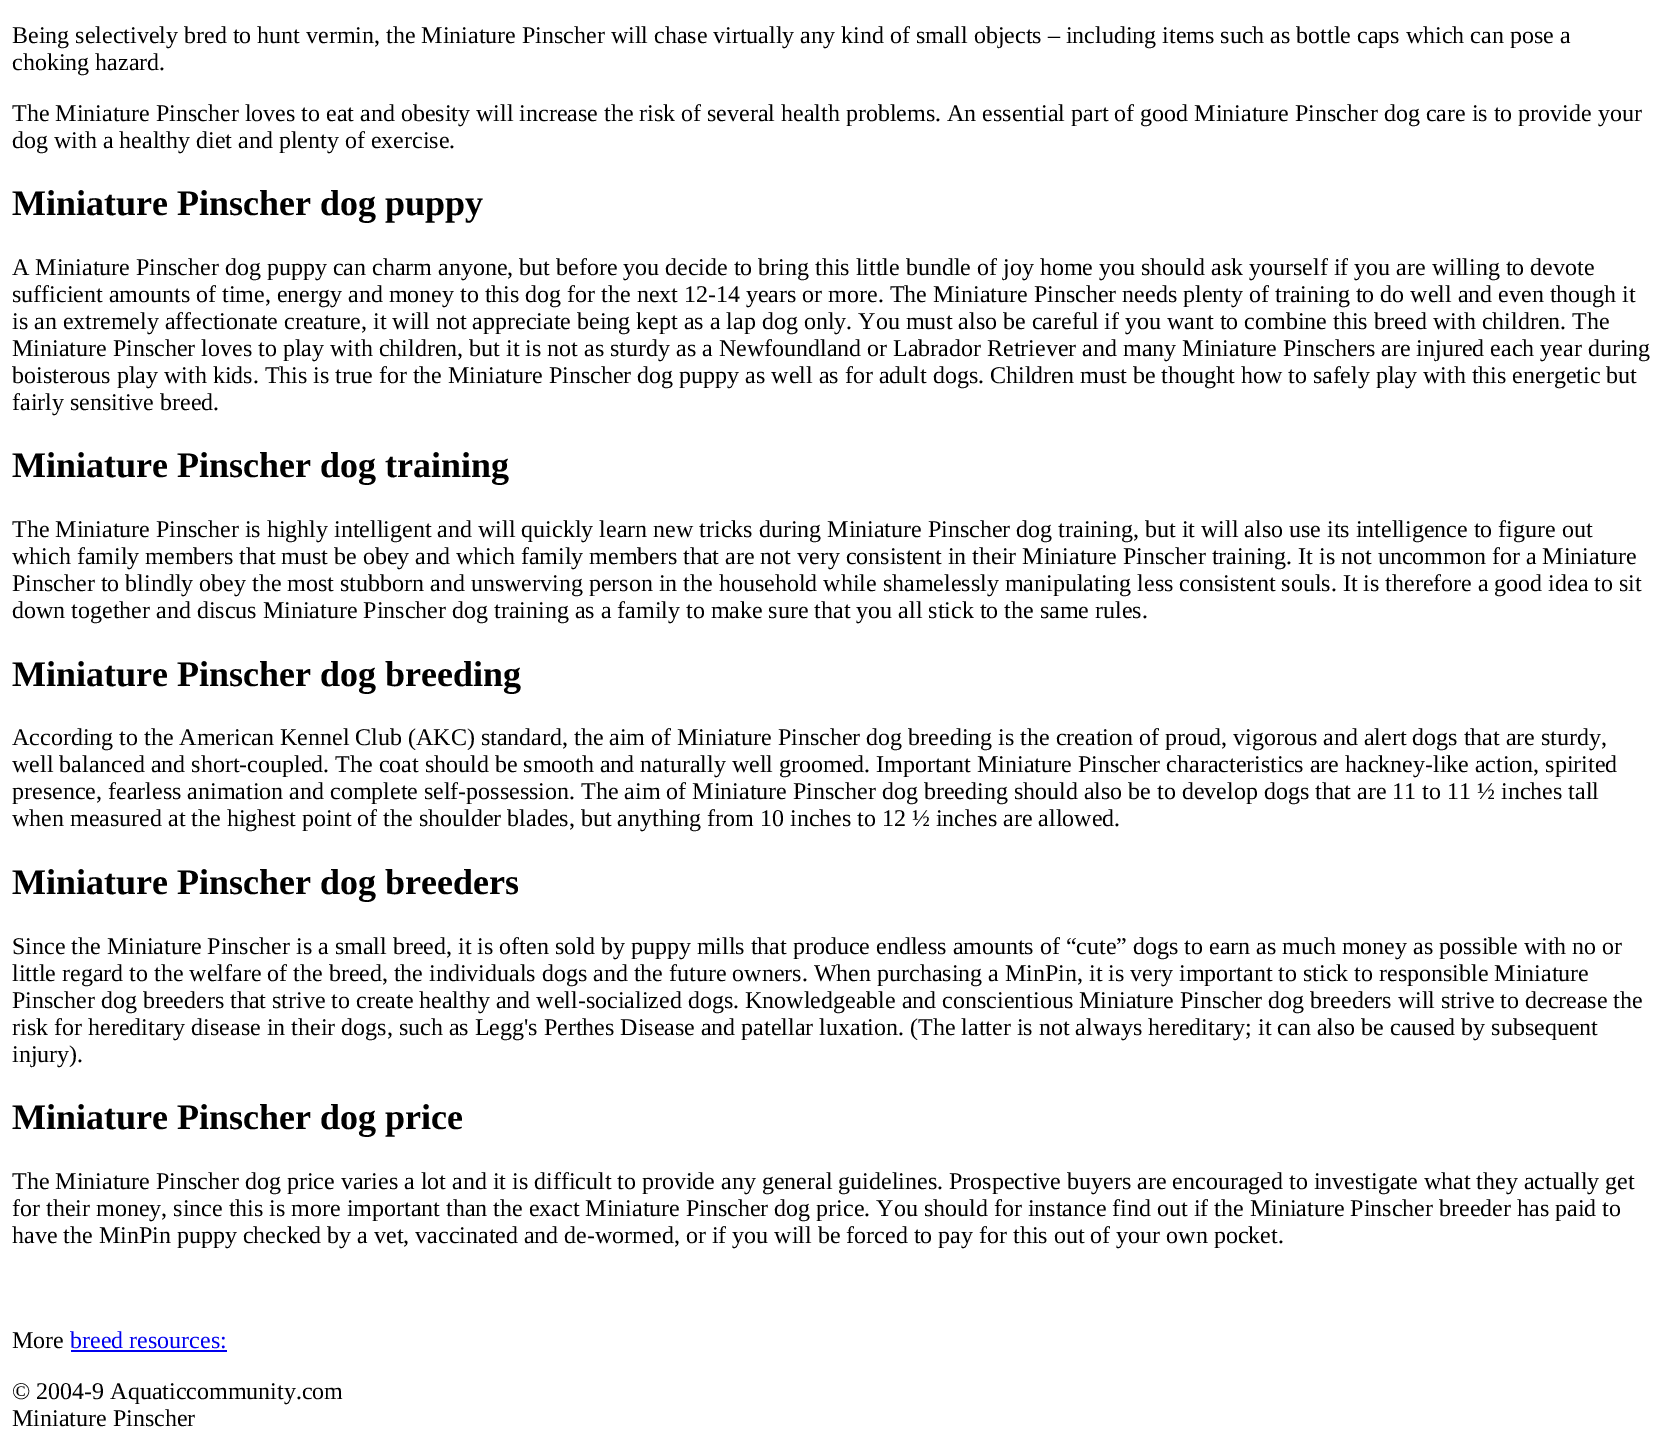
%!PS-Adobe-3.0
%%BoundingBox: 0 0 1664 1444
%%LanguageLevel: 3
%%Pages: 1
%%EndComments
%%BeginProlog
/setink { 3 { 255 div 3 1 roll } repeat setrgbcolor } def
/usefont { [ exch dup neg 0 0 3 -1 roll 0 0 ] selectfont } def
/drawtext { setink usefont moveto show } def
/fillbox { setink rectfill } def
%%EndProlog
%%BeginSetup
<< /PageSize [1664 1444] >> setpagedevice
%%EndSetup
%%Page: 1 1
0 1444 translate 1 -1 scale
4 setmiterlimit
0 0 1664 1444 255 255 255 fillbox
(Being selectively bred to hunt vermin, the Miniature Pinscher will chase virtually any kind of small objects – including items such as bottle caps which can pose a) 12 43 /LiberationSerif-Regular 24 0 0 0 drawtext
(choking hazard.) 12 70 /LiberationSerif-Regular 24 0 0 0 drawtext
(The Miniature Pinscher loves to eat and obesity will increase the risk of several health problems. An essential part of good Miniature Pinscher dog care is to provide your) 12 121 /LiberationSerif-Regular 24 0 0 0 drawtext
(dog with a healthy diet and plenty of exercise.) 12 148 /LiberationSerif-Regular 24 0 0 0 drawtext
(Miniature Pinscher dog puppy) 12 215 /LiberationSerif-Bold 36 0 0 0 drawtext
(A Miniature Pinscher dog puppy can charm anyone, but before you decide to bring this little bundle of joy home you should ask yourself if you are willing to devote) 12 275 /LiberationSerif-Regular 24 0 0 0 drawtext
(sufficient amounts of time, energy and money to this dog for the next 12-14 years or more. The Miniature Pinscher needs plenty of training to do well and even though it) 12 302 /LiberationSerif-Regular 24 0 0 0 drawtext
(is an extremely affectionate creature, it will not appreciate being kept as a lap dog only. You must also be careful if you want to combine this breed with children. The) 12 329 /LiberationSerif-Regular 24 0 0 0 drawtext
(Miniature Pinscher loves to play with children, but it is not as sturdy as a Newfoundland or Labrador Retriever and many Miniature Pinschers are injured each year during) 12 356 /LiberationSerif-Regular 24 0 0 0 drawtext
(boisterous play with kids. This is true for the Miniature Pinscher dog puppy as well as for adult dogs. Children must be thought how to safely play with this energetic but) 12 383 /LiberationSerif-Regular 24 0 0 0 drawtext
(fairly sensitive breed.) 12 410 /LiberationSerif-Regular 24 0 0 0 drawtext
(Miniature Pinscher dog training) 12 477 /LiberationSerif-Bold 36 0 0 0 drawtext
(The Miniature Pinscher is highly intelligent and will quickly learn new tricks during Miniature Pinscher dog training, but it will also use its intelligence to figure out) 12 537 /LiberationSerif-Regular 24 0 0 0 drawtext
(which family members that must be obey and which family members that are not very consistent in their Miniature Pinscher training. It is not uncommon for a Miniature) 12 564 /LiberationSerif-Regular 24 0 0 0 drawtext
(Pinscher to blindly obey the most stubborn and unswerving person in the household while shamelessly manipulating less consistent souls. It is therefore a good idea to sit) 12 591 /LiberationSerif-Regular 24 0 0 0 drawtext
(down together and discus Miniature Pinscher dog training as a family to make sure that you all stick to the same rules.) 12 618 /LiberationSerif-Regular 24 0 0 0 drawtext
(Miniature Pinscher dog breeding) 12 686 /LiberationSerif-Bold 36 0 0 0 drawtext
(According to the American Kennel Club \(AKC\) standard, the aim of Miniature Pinscher dog breeding is the creation of proud, vigorous and alert dogs that are sturdy,) 12 745 /LiberationSerif-Regular 24 0 0 0 drawtext
(well balanced and short-coupled. The coat should be smooth and naturally well groomed. Important Miniature Pinscher characteristics are hackney-like action, spirited) 12 772 /LiberationSerif-Regular 24 0 0 0 drawtext
(presence, fearless animation and complete self-possession. The aim of Miniature Pinscher dog breeding should also be to develop dogs that are 11 to 11 ½ inches tall) 12 799 /LiberationSerif-Regular 24 0 0 0 drawtext
(when measured at the highest point of the shoulder blades, but anything from 10 inches to 12 ½ inches are allowed.) 12 826 /LiberationSerif-Regular 24 0 0 0 drawtext
(Miniature Pinscher dog breeders) 12 894 /LiberationSerif-Bold 36 0 0 0 drawtext
(Since the Miniature Pinscher is a small breed, it is often sold by puppy mills that produce endless amounts of “cute” dogs to earn as much money as possible with no or) 12 954 /LiberationSerif-Regular 24 0 0 0 drawtext
(little regard to the welfare of the breed, the individuals dogs and the future owners. When purchasing a MinPin, it is very important to stick to responsible Miniature) 12 981 /LiberationSerif-Regular 24 0 0 0 drawtext
(Pinscher dog breeders that strive to create healthy and well-socialized dogs. Knowledgeable and conscientious Miniature Pinscher dog breeders will strive to decrease the) 12 1008 /LiberationSerif-Regular 24 0 0 0 drawtext
(risk for hereditary disease in their dogs, such as Legg's Perthes Disease and patellar luxation. \(The latter is not always hereditary; it can also be caused by subsequent) 12 1035 /LiberationSerif-Regular 24 0 0 0 drawtext
(injury\).) 12 1062 /LiberationSerif-Regular 24 0 0 0 drawtext
(Miniature Pinscher dog price) 12 1129 /LiberationSerif-Bold 36 0 0 0 drawtext
(The Miniature Pinscher dog price varies a lot and it is difficult to provide any general guidelines. Prospective buyers are encouraged to investigate what they actually get) 12 1189 /LiberationSerif-Regular 24 0 0 0 drawtext
(for their money, since this is more important than the exact Miniature Pinscher dog price. You should for instance find out if the Miniature Pinscher breeder has paid to) 12 1216 /LiberationSerif-Regular 24 0 0 0 drawtext
(have the MinPin puppy checked by a vet, vaccinated and de-wormed, or if you will be forced to pay for this out of your own pocket.) 12 1243 /LiberationSerif-Regular 24 0 0 0 drawtext
(More) 12 1348 /LiberationSerif-Regular 24 0 0 0 drawtext
(breed resources:) 70 1348 /LiberationSerif-Regular 24 0 0 238 drawtext
71 1350 156 2 0 0 238 fillbox
(© 2004-9 Aquaticcommunity.com) 12 1399 /LiberationSerif-Regular 24 0 0 0 drawtext
(Miniature Pinscher) 12 1426 /LiberationSerif-Regular 24 0 0 0 drawtext
showpage
%%EOF
